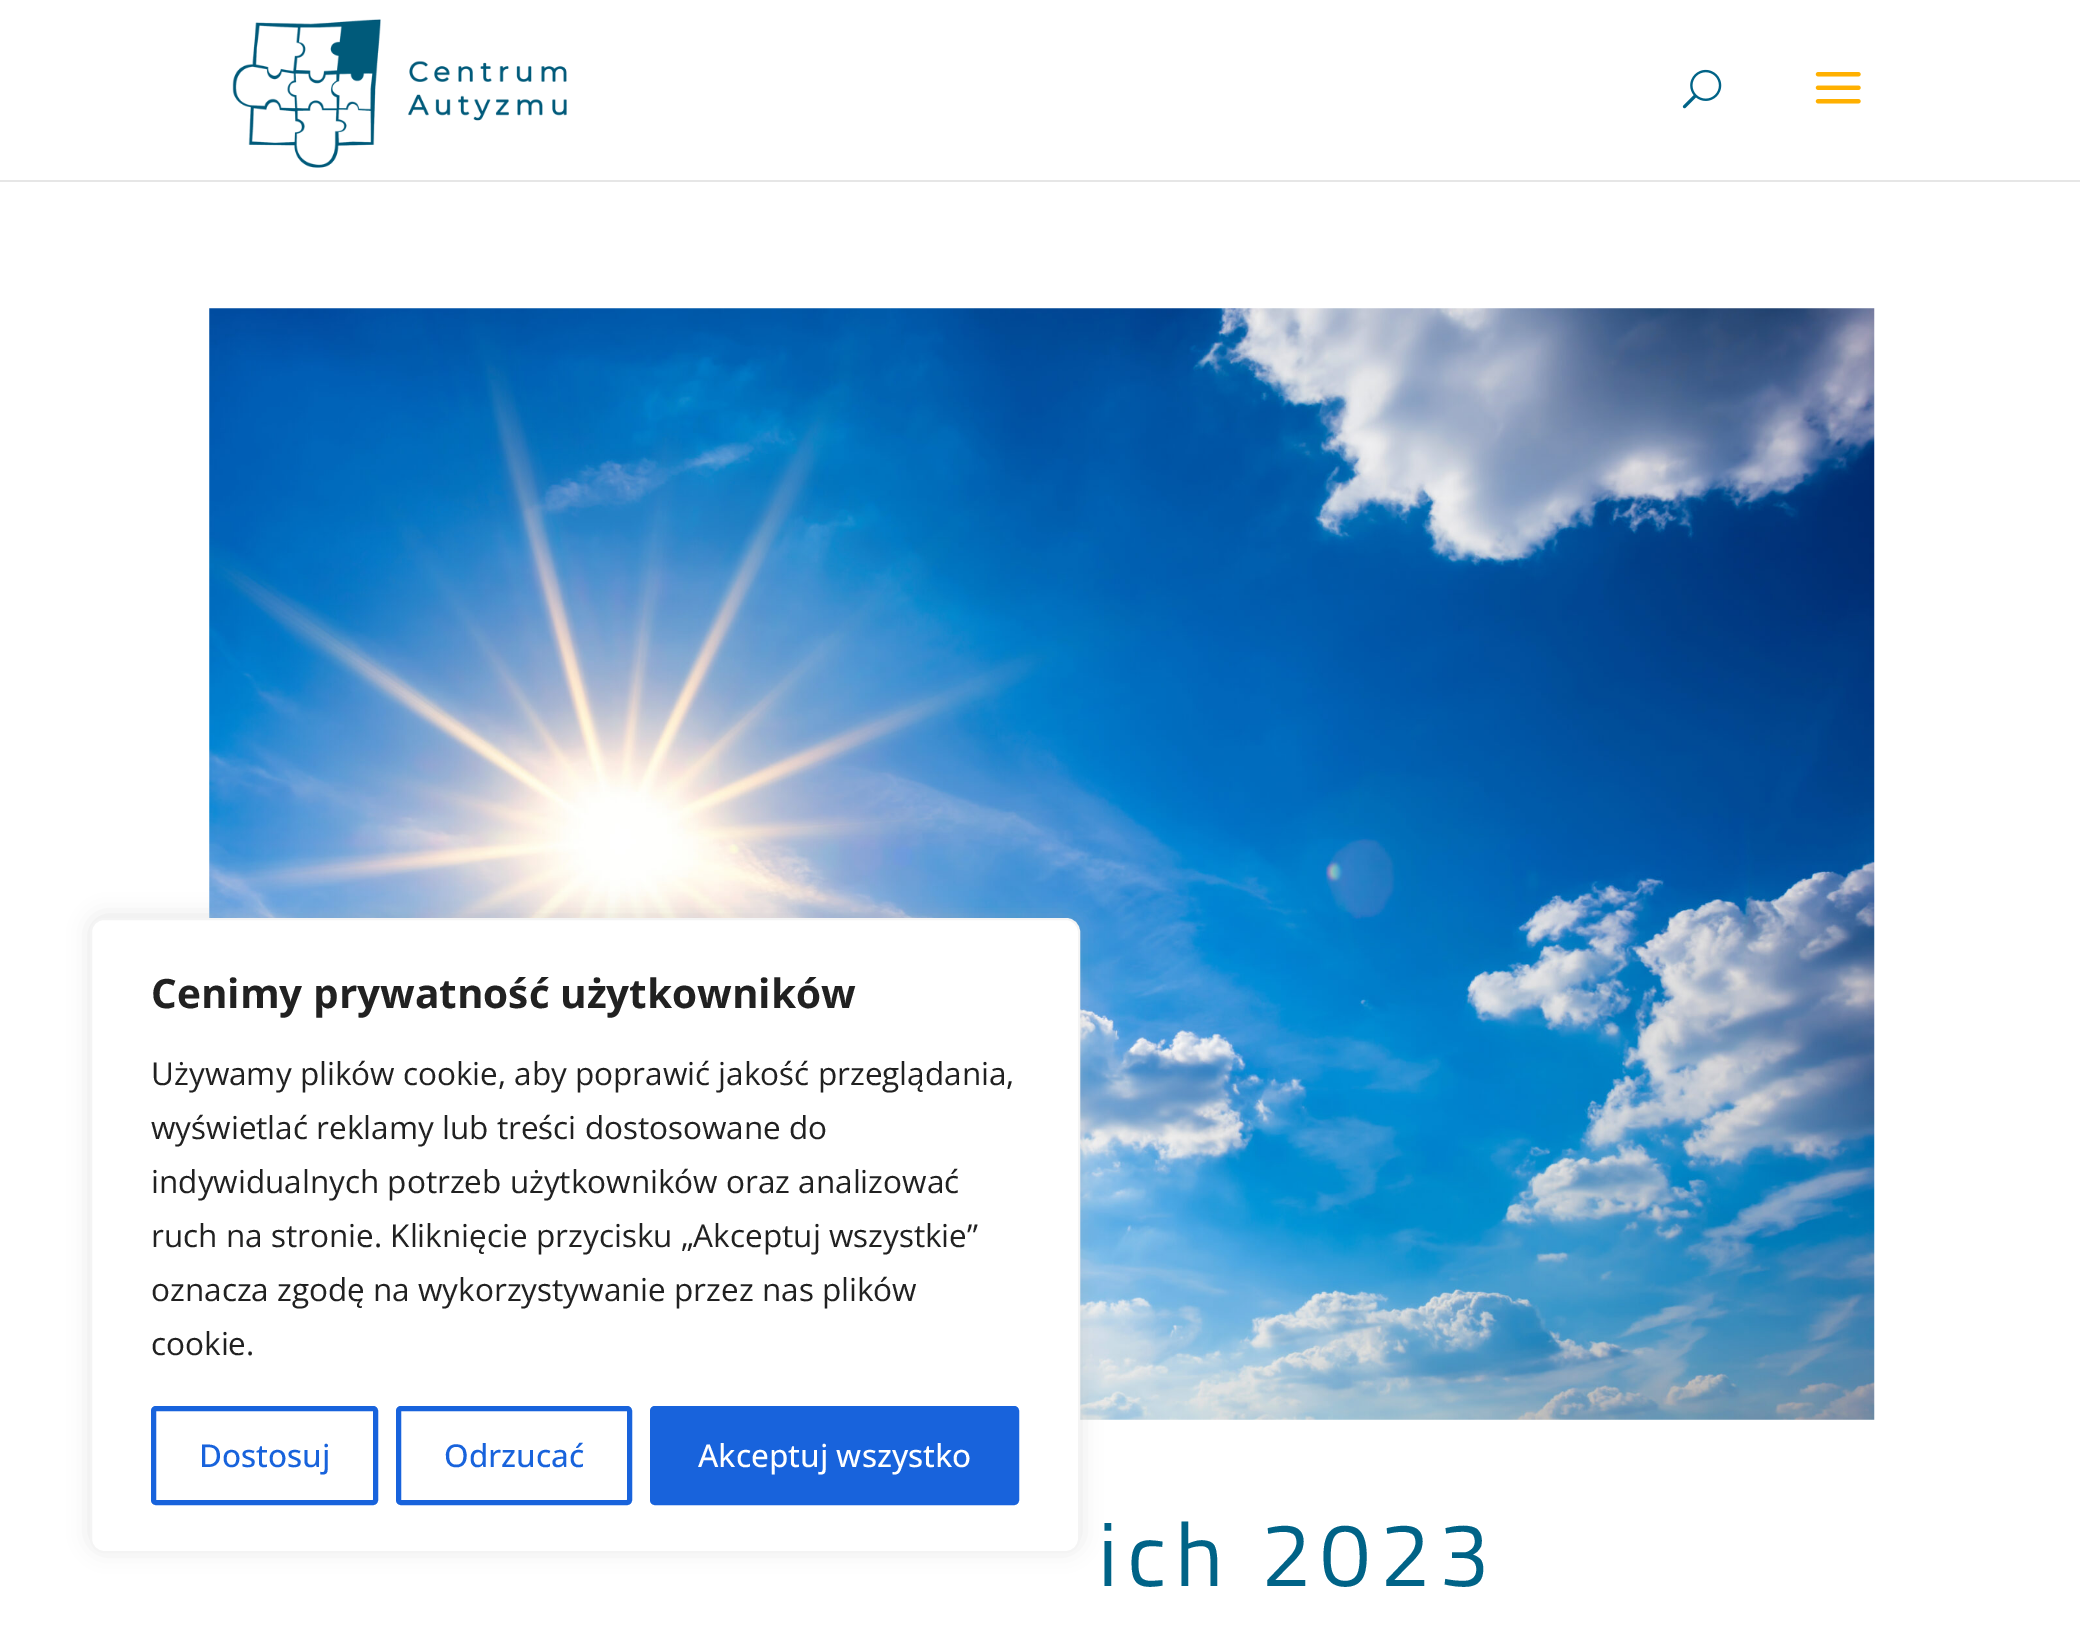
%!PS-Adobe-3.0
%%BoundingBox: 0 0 2080 1641
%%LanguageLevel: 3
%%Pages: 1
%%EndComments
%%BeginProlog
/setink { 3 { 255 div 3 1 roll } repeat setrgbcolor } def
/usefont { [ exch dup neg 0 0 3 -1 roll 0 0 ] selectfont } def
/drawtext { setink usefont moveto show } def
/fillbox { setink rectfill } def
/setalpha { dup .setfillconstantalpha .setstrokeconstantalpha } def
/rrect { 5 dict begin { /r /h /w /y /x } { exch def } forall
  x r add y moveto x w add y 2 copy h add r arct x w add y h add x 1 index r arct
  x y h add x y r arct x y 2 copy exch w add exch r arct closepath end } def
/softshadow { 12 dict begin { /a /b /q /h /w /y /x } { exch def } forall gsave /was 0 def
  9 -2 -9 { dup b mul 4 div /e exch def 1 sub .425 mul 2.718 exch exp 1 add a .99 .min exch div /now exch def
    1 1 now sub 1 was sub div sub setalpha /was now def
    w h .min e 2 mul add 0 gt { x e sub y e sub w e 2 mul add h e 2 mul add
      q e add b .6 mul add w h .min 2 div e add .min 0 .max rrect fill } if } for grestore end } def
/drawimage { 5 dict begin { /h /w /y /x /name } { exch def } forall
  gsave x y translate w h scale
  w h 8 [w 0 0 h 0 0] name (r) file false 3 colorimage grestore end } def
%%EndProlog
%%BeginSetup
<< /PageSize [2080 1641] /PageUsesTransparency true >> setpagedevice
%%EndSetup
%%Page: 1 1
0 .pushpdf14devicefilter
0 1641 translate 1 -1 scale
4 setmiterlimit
0 0 2080 1641 255 255 255 fillbox
(assets/img4.rgb) 209 308 1666 1112 drawimage
172 171 171 setink
90 916 990 634 14 11 0.3 softshadow
255 255 255 setink
91 919 988 633 13 rrect gsave fill grestore
244 244 244 setink
2 setlinewidth
stroke
(Cenimy prywatność użytkowników) 151 1008 /OpenSans-Bold 40.5 33 33 33 drawtext
(Używamy plików cookie, aby poprawić jakość przeglądania,) 151 1085 /OpenSans-Regular 31.5 33 33 33 drawtext
(wyświetlać reklamy lub treści dostosowane do) 151 1139 /OpenSans-Regular 31.5 33 33 33 drawtext
(indywidualnych potrzeb użytkowników oraz analizować) 151 1193 /OpenSans-Regular 31.5 33 33 33 drawtext
(ruch na stronie. Kliknięcie przycisku „Akceptuj wszystkie”) 151 1247 /OpenSans-Regular 31.5 33 33 33 drawtext
(oznacza zgodę na wykorzystywanie przez nas plików) 151 1301 /OpenSans-Regular 31.5 33 33 33 drawtext
(cookie.) 151 1355 /OpenSans-Regular 31.5 33 33 33 drawtext
24 99 220 setink
5 setlinewidth
153.5 1408.5 222 94 2.5 rrect stroke
(Dostosuj) 199 1467 /OpenSans-Medium 31.5 24 99 220 drawtext
398.5 1408.5 231 94 2.5 rrect stroke
(Odrzucać) 444 1467 /OpenSans-Medium 31.5 24 99 220 drawtext
652.5 1408.5 364 94 2.5 rrect gsave fill grestore
stroke
(Akceptuj wszystko) 698 1467 /OpenSans-Medium 31.5 255 255 255 drawtext
0 180 2080 2 230 230 230 fillbox
(assets/img1.rgb) 232 19 335 149 drawimage
(assets/img2.rgb) 1682 69 40 40 drawimage
(assets/img3.rgb) 1815 72 46 32 drawimage
/TitilliumWeb-Regular 90 usefont
0 99 135 setink
1098 1586 moveto 9 0 (ich 2023) ashow
.poppdf14devicefilter showpage
%%EOF
